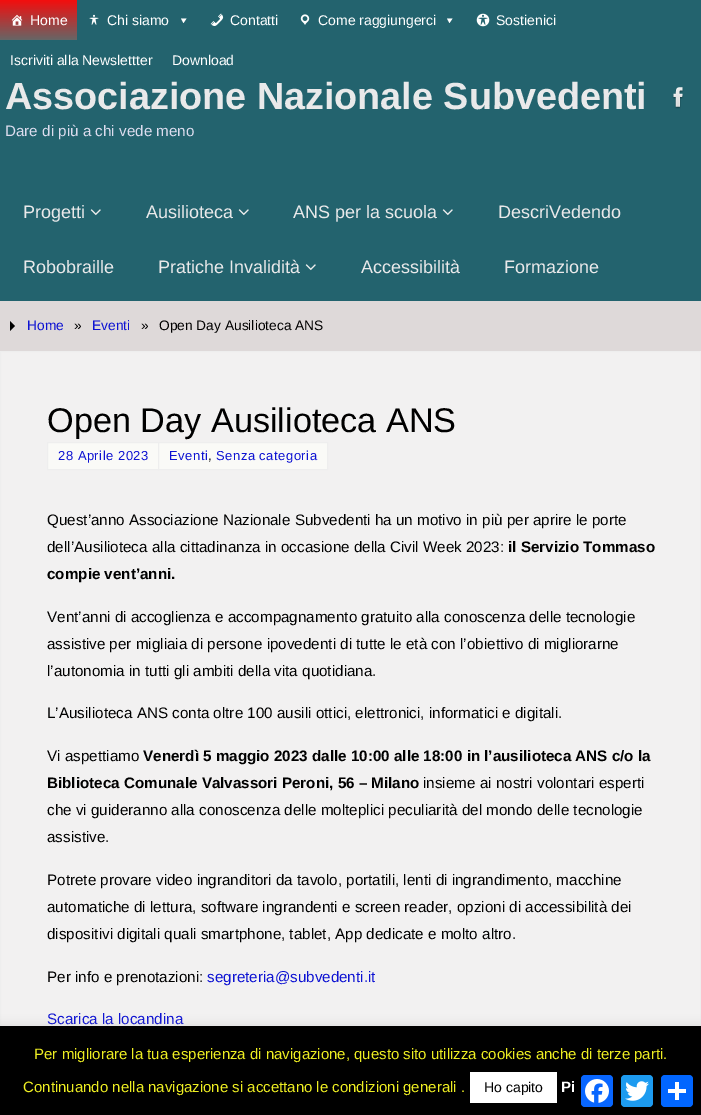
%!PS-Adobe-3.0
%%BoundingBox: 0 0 701 1115
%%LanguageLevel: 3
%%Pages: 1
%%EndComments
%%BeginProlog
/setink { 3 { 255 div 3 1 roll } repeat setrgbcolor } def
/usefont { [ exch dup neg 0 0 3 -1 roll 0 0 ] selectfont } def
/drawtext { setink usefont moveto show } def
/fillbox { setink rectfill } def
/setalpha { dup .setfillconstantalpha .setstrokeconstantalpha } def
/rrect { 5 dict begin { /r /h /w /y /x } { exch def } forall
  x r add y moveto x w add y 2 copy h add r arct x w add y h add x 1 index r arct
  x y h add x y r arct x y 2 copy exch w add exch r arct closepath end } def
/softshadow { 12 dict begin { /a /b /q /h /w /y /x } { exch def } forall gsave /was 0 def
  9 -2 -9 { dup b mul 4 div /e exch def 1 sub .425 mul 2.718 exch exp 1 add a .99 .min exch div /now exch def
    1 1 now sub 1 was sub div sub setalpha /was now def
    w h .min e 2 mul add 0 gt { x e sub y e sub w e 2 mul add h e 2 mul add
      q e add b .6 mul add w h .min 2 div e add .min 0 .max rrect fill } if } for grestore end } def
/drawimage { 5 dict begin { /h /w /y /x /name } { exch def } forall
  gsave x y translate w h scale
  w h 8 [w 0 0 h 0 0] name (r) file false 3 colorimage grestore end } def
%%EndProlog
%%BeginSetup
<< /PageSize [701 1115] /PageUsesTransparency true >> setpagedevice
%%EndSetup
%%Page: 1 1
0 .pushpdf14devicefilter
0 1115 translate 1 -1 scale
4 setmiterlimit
0 0 701 1115 222 217 217 fillbox
0 0 701 301 35 99 110 fillbox
gsave 0 0 moveto 77 0 lineto 77 40 lineto 0 40 lineto closepath clip newpath
<< /ShadingType 2 /ColorSpace /DeviceRGB /Coords [39 0 39 40] /Extend [true true] /Function << /FunctionType 2 /Domain [0 1] /C0 [0.957 0.051 0.051] /C1 [0.4 0.4 0.4] /N 1 >> >> shfill grestore
(assets/img1.rgb) 11 14 12 12 drawimage
(Home) 30 25 /LiberationSans-Regular 14 255 255 255 drawtext
(assets/img2.rgb) 89 14 10 11 drawimage
(Chi siamo) 107 25 /LiberationSans-Regular 14 255 255 255 drawtext
186.5 18.5 moveto 183.5 23 lineto 181 18.5 lineto closepath fill
(assets/img3.rgb) 210 13 14 13 drawimage
(Contatti) 230 25 /LiberationSans-Regular 14 255 255 255 drawtext
(assets/img4.rgb) 300 14 10 11 drawimage
(Come raggiungerci) 318 25 /LiberationSans-Regular 14 255 255 255 drawtext
452.5 18.5 moveto 449.5 23 lineto 447 18.5 lineto closepath fill
(assets/img5.rgb) 476 13 14 14 drawimage
(Sostienici) 496 25 /LiberationSans-Regular 14 255 255 255 drawtext
(Iscriviti alla Newslettter) 10 65 /LiberationSans-Regular 14 255 255 255 drawtext
(Download) 172 65 /LiberationSans-Regular 14 255 255 255 drawtext
(Associazione Nazionale Subvedenti) 5 109 /LiberationSans-Bold 37.75 233 233 234 drawtext
(Dare di più a chi vede meno) 5 136 /LiberationSans-Regular 15.2 220 220 238 drawtext
(assets/img6.rgb) 672 87 12 22 drawimage
(Progetti) 23 218 /LiberationSans-Regular 18 233 233 234 drawtext
(assets/img7.rgb) 90 209 11 7 drawimage
(Ausilioteca) 146 218 /LiberationSans-Regular 18 233 233 234 drawtext
(assets/img7.rgb) 238 209 11 7 drawimage
(ANS per la scuola) 293 218 /LiberationSans-Regular 18 233 233 234 drawtext
(assets/img7.rgb) 442 209 11 7 drawimage
(DescriVedendo) 498 218 /LiberationSans-Regular 18 233 233 234 drawtext
(Robobraille) 23 273 /LiberationSans-Regular 18 233 233 234 drawtext
(Pratiche Invalidità) 158 273 /LiberationSans-Regular 18 233 233 234 drawtext
(assets/img7.rgb) 305 264 11 7 drawimage
(Accessibilità) 361 273 /LiberationSans-Regular 18 233 233 234 drawtext
(Formazione) 504 273 /LiberationSans-Regular 18 233 233 234 drawtext
0 0 0 setink
10 331 moveto 10 321 lineto 15 326 lineto closepath fill
(Home) 27 330 /LiberationSans-Regular 13.75 13 18 210 drawtext
(») 74 330 /LiberationSans-Regular 13.75 0 0 0 drawtext
(Eventi) 92 330 /LiberationSans-Regular 13.75 13 18 210 drawtext
(») 141 330 /LiberationSans-Regular 13.75 0 0 0 drawtext
(Open Day Ausilioteca ANS) 159 330 /LiberationSans-Regular 13.75 0 0 0 drawtext
1 352 699 674 242 241 241 fillbox
238 238 238 setink
0.5 351.5 700 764 rectstroke
(Open Day Ausilioteca ANS) 47 432 /LiberationSans-Regular 34.25 0 0 0 drawtext
250 250 247 setink
47.5 442.5 moveto 158.5 442.5 lineto 158.5 469.5 lineto 47.5 469.5 lineto closepath gsave fill grestore
238 238 238 setink
stroke
/LiberationSans-Regular 13 usefont
13 18 210 setink
58 460 moveto 0.5 0 (28 Aprile 2023) ashow
250 250 247 setink
158.5 442.5 moveto 327.5 442.5 lineto 327.5 469.5 lineto 158.5 469.5 lineto closepath gsave fill grestore
238 238 238 setink
stroke
13 18 210 setink
169 460 moveto 0.5 0 (Eventi) ashow
0 0 0 setink
208 460 moveto 0.5 0 (,) ashow
13 18 210 setink
216 460 moveto 0.5 0 (Senza categoria) ashow
(Quest’anno Associazione Nazionale Subvedenti ha un motivo in più per aprire le porte) 47 525 /LiberationSans-Regular 15.2 0 0 0 drawtext
(dell’Ausilioteca alla cittadinanza in occasione della Civil Week 2023:) 47 552 /LiberationSans-Regular 15.2 0 0 0 drawtext
(il Servizio Tommaso) 508 552 /LiberationSans-Bold 15.2 0 0 0 drawtext
(compie vent’anni.) 47 579 /LiberationSans-Bold 15.2 0 0 0 drawtext
(Vent’anni di accoglienza e accompagnamento gratuito alla conoscenza delle tecnologie) 47 622 /LiberationSans-Regular 15.2 0 0 0 drawtext
(assistive per migliaia di persone ipovedenti di tutte le età con l’obiettivo di migliorarne) 47 649 /LiberationSans-Regular 15.2 0 0 0 drawtext
(l’autonomia in tutti gli ambiti della vita quotidiana.) 47 676 /LiberationSans-Regular 15.2 0 0 0 drawtext
(L’Ausilioteca ANS conta oltre 100 ausili ottici, elettronici, informatici e digitali.) 47 718 /LiberationSans-Regular 15.2 0 0 0 drawtext
(Vi aspettiamo) 47 761 /LiberationSans-Regular 15.2 0 0 0 drawtext
(Venerdì 5 maggio 2023 dalle 10:00 alle 18:00 in l’ausilioteca ANS c/o la) 143 761 /LiberationSans-Bold 15.2 0 0 0 drawtext
(Biblioteca Comunale Valvassori Peroni, 56 – Milano) 47 788 /LiberationSans-Bold 15.2 0 0 0 drawtext
(insieme ai nostri volontari esperti) 423 788 /LiberationSans-Regular 15.2 0 0 0 drawtext
(che vi guideranno alla conoscenza delle molteplici peculiarità del mondo delle tecnologie) 47 815 /LiberationSans-Regular 15.2 0 0 0 drawtext
(assistive.) 47 842 /LiberationSans-Regular 15.2 0 0 0 drawtext
(Potrete provare video ingranditori da tavolo, portatili, lenti di ingrandimento, macchine) 47 885 /LiberationSans-Regular 15.2 0 0 0 drawtext
(automatiche di lettura, software ingrandenti e screen reader, opzioni di accessibilità dei) 47 912 /LiberationSans-Regular 15.2 0 0 0 drawtext
(dispositivi digitali quali smartphone, tablet, App dedicate e molto altro.) 47 939 /LiberationSans-Regular 15.2 0 0 0 drawtext
(Per info e prenotazioni:) 47 982 /LiberationSans-Regular 15.2 0 0 0 drawtext
(segreteria@subvedenti.it) 207 982 /LiberationSans-Regular 15.2 13 18 210 drawtext
(Scarica la locandina) 47 1024 /LiberationSans-Regular 15.2 13 18 210 drawtext
172 171 171 setink
0 1025 701 89 0 5 0.3 softshadow
0 1026 701 89 0 0 0 fillbox
(Per migliorare la tua esperienza di navigazione, questo sito utilizza cookies anche di terze parti.) 34 1059 /LiberationSans-Regular 15 238 238 34 drawtext
(Continuando nella navigazione si accettano le condizioni generali .) 23 1092 /LiberationSans-Regular 15 238 238 34 drawtext
470 1072 87 31 255 255 255 fillbox
(Ho capito) 484 1092 /LiberationSans-Regular 14 0 0 0 drawtext
(Pi) 561 1092 /LiberationSans-Bold 15 255 255 255 drawtext
8 102 255 setink
581 1075 32 32 4 rrect fill
(assets/img8.rgb) 585 1079 24 24 drawimage
29 155 240 setink
621 1075 32 32 4 rrect fill
(assets/img9.rgb) 625 1081 24 20 drawimage
1 102 255 setink
661 1075 32 32 4 rrect fill
675 1082 4 18 255 255 255 fillbox
668 1089 18 4 255 255 255 fillbox
.poppdf14devicefilter showpage
%%EOF
